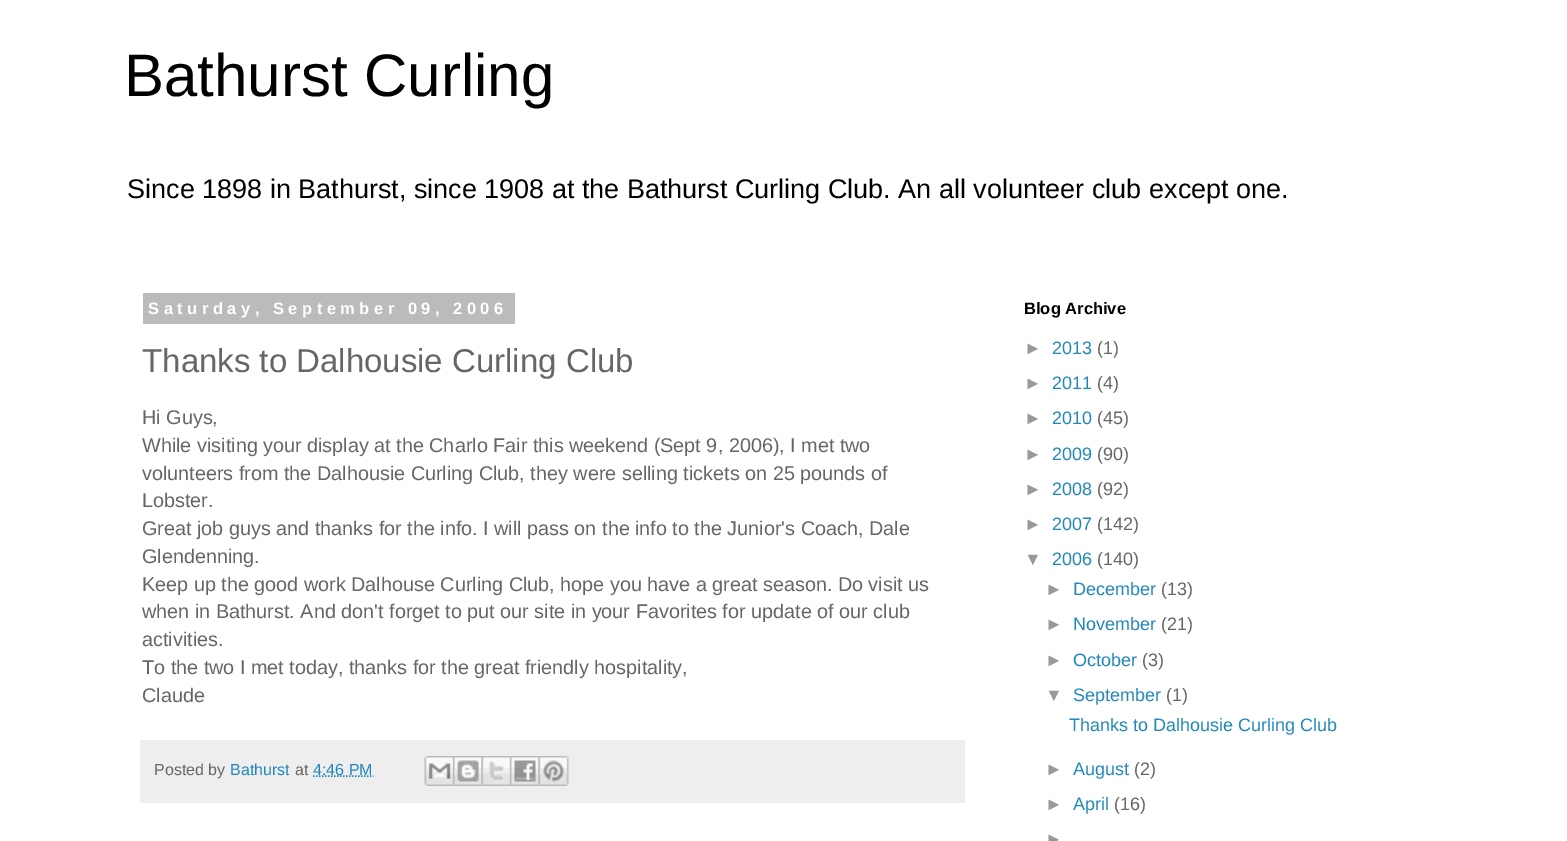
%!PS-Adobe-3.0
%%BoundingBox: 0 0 1567 841
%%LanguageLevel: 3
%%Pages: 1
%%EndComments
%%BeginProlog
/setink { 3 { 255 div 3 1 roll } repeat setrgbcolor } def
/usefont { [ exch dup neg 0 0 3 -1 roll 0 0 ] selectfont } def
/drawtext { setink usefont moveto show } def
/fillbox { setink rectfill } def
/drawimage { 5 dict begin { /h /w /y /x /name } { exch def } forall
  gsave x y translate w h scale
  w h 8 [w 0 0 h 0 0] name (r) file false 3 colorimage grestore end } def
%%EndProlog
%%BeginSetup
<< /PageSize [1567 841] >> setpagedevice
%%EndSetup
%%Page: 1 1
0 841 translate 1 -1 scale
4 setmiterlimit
0 0 1567 841 255 255 255 fillbox
(Bathurst Curling) 124 96 /LiberationSans-Regular 60 0 0 0 drawtext
(Since 1898 in Bathurst, since 1908 at the Bathurst Curling Club. An all volunteer club except one.) 127 198 /LiberationSans-Regular 27 0 0 0 drawtext
143 293 372 31 187 187 187 fillbox
/LiberationSans-Bold 16.5 usefont
255 255 255 setink
148 314 moveto 4.5 0 (Saturday, September 09, 2006) ashow
(Thanks to Dalhousie Curling Club) 142 372 /LiberationSans-Regular 33 102 102 102 drawtext
(Hi Guys,) 142 424 /LiberationSans-Regular 19.8 102 102 102 drawtext
(While visiting your display at the Charlo Fair this weekend \(Sept 9, 2006\), I met two) 142 452 /LiberationSans-Regular 19.8 102 102 102 drawtext
(volunteers from the Dalhousie Curling Club, they were selling tickets on 25 pounds of) 142 480 /LiberationSans-Regular 19.8 102 102 102 drawtext
(Lobster.) 142 507 /LiberationSans-Regular 19.8 102 102 102 drawtext
(Great job guys and thanks for the info. I will pass on the info to the Junior's Coach, Dale) 142 535 /LiberationSans-Regular 19.8 102 102 102 drawtext
(Glendenning.) 142 563 /LiberationSans-Regular 19.8 102 102 102 drawtext
(Keep up the good work Dalhouse Curling Club, hope you have a great season. Do visit us) 142 591 /LiberationSans-Regular 19.8 102 102 102 drawtext
(when in Bathurst. And don't forget to put our site in your Favorites for update of our club) 142 618 /LiberationSans-Regular 19.8 102 102 102 drawtext
(activities.) 142 646 /LiberationSans-Regular 19.8 102 102 102 drawtext
(To the two I met today, thanks for the great friendly hospitality,) 142 674 /LiberationSans-Regular 19.8 102 102 102 drawtext
(Claude) 142 702 /LiberationSans-Regular 19.8 102 102 102 drawtext
140 740 825 63 238 238 238 fillbox
(Posted by) 154 775 /LiberationSans-Regular 16 102 102 102 drawtext
(Bathurst) 230 775 /LiberationSans-Regular 16 34 136 187 drawtext
(at) 295 775 /LiberationSans-Regular 16 102 102 102 drawtext
34 136 187 setink
1.5 setlinewidth
[1.5 1.5] 0 setdash
313 776 moveto 373.5 776 lineto stroke
(4:46 PM) 313 775 /LiberationSans-Regular 16 34 136 187 drawtext
(assets/img1.rgb) 424 756 29 30 drawimage
(assets/img2.rgb) 453 756 29 30 drawimage
(assets/img3.rgb) 481 756 29 30 drawimage
(assets/img4.rgb) 510 756 29 30 drawimage
(assets/img5.rgb) 538 756 31 30 drawimage
(Blog Archive) 1024 314 /LiberationSans-Bold 16.5 0 0 0 drawtext
(►) 1024 354 /LiberationSans-Regular 18 153 153 153 drawtext
(2013) 1052 354 /LiberationSans-Regular 18 34 136 187 drawtext
(\(1\)) 1097 354 /LiberationSans-Regular 18 102 102 102 drawtext
(►) 1024 389 /LiberationSans-Regular 18 153 153 153 drawtext
(2011) 1052 389 /LiberationSans-Regular 18 34 136 187 drawtext
(\(4\)) 1097 389 /LiberationSans-Regular 18 102 102 102 drawtext
(►) 1024 424 /LiberationSans-Regular 18 153 153 153 drawtext
(2010) 1052 424 /LiberationSans-Regular 18 34 136 187 drawtext
(\(45\)) 1097 424 /LiberationSans-Regular 18 102 102 102 drawtext
(►) 1024 460 /LiberationSans-Regular 18 153 153 153 drawtext
(2009) 1052 460 /LiberationSans-Regular 18 34 136 187 drawtext
(\(90\)) 1097 460 /LiberationSans-Regular 18 102 102 102 drawtext
(►) 1024 495 /LiberationSans-Regular 18 153 153 153 drawtext
(2008) 1052 495 /LiberationSans-Regular 18 34 136 187 drawtext
(\(92\)) 1097 495 /LiberationSans-Regular 18 102 102 102 drawtext
(►) 1024 530 /LiberationSans-Regular 18 153 153 153 drawtext
(2007) 1052 530 /LiberationSans-Regular 18 34 136 187 drawtext
(\(142\)) 1097 530 /LiberationSans-Regular 18 102 102 102 drawtext
(▼) 1024 565 /LiberationSans-Regular 18 153 153 153 drawtext
(2006) 1052 565 /LiberationSans-Regular 18 34 136 187 drawtext
(\(140\)) 1097 565 /LiberationSans-Regular 18 102 102 102 drawtext
(►) 1045 595 /LiberationSans-Regular 18 153 153 153 drawtext
(December) 1073 595 /LiberationSans-Regular 18 34 136 187 drawtext
(\(13\)) 1161 595 /LiberationSans-Regular 18 102 102 102 drawtext
(►) 1045 630 /LiberationSans-Regular 18 153 153 153 drawtext
(November) 1073 630 /LiberationSans-Regular 18 34 136 187 drawtext
(\(21\)) 1161 630 /LiberationSans-Regular 18 102 102 102 drawtext
(►) 1045 666 /LiberationSans-Regular 18 153 153 153 drawtext
(October) 1073 666 /LiberationSans-Regular 18 34 136 187 drawtext
(\(3\)) 1142 666 /LiberationSans-Regular 18 102 102 102 drawtext
(▼) 1045 701 /LiberationSans-Regular 18 153 153 153 drawtext
(September) 1073 701 /LiberationSans-Regular 18 34 136 187 drawtext
(\(1\)) 1166 701 /LiberationSans-Regular 18 102 102 102 drawtext
(Thanks to Dalhousie Curling Club) 1069 731 /LiberationSans-Regular 18 34 136 187 drawtext
(►) 1045 775 /LiberationSans-Regular 18 153 153 153 drawtext
(August) 1073 775 /LiberationSans-Regular 18 34 136 187 drawtext
(\(2\)) 1134 775 /LiberationSans-Regular 18 102 102 102 drawtext
(►) 1045 810 /LiberationSans-Regular 18 153 153 153 drawtext
(April) 1073 810 /LiberationSans-Regular 18 34 136 187 drawtext
(\(16\)) 1114 810 /LiberationSans-Regular 18 102 102 102 drawtext
(►) 1045 845 /LiberationSans-Regular 18 153 153 153 drawtext
showpage
%%EOF
